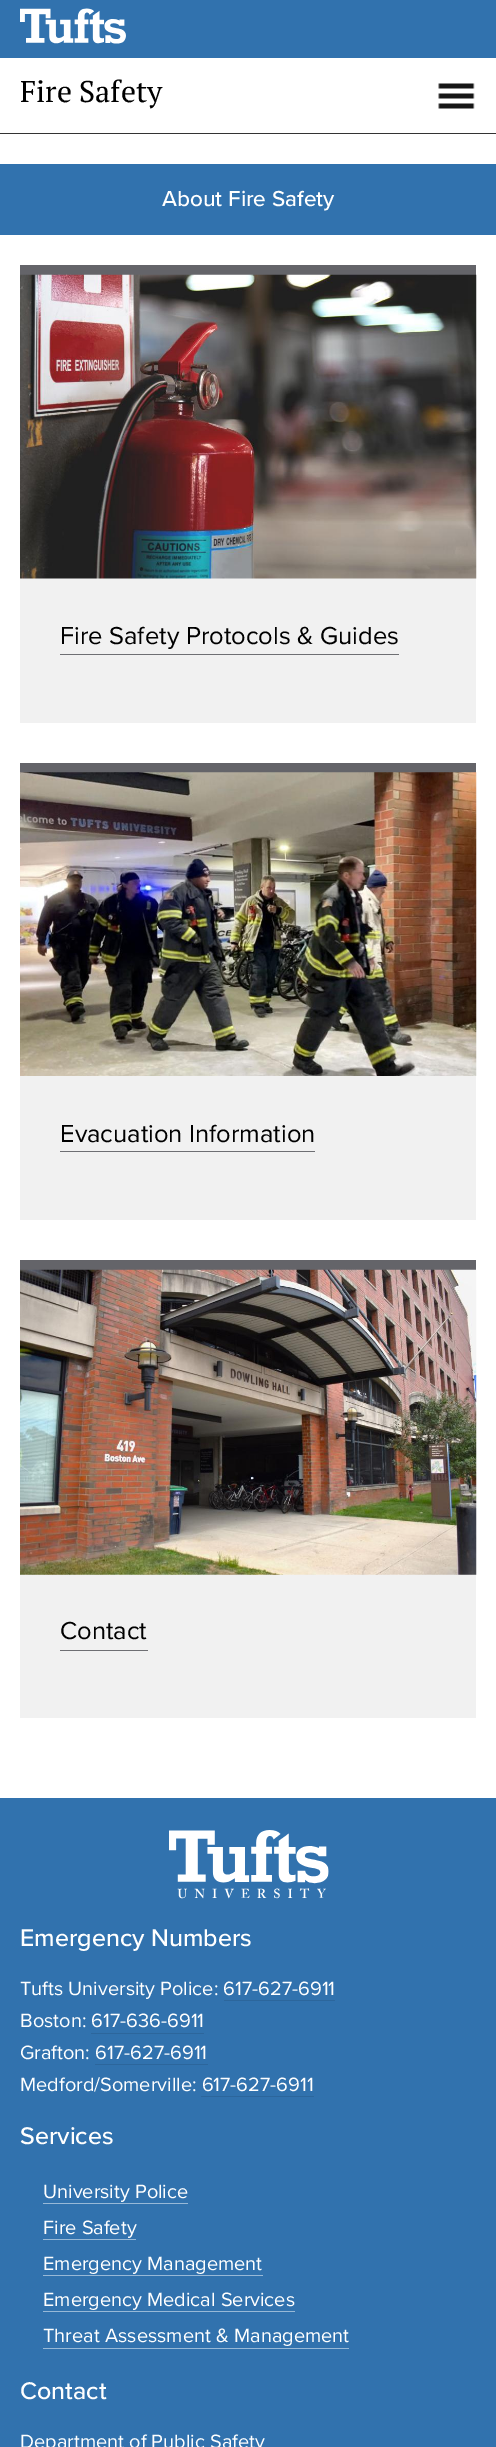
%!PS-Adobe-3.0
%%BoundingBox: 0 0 496 2447
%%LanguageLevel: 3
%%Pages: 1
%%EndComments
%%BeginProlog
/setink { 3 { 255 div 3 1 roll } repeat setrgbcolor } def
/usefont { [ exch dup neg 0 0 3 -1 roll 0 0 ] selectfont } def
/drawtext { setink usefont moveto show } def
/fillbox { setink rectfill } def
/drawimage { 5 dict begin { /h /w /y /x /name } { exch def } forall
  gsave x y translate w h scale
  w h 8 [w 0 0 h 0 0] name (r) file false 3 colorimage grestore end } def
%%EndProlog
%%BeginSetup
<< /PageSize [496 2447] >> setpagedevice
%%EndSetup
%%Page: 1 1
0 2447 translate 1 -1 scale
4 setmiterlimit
0 0 496 2447 255 255 255 fillbox
0 133 496 1 51 51 51 fillbox
0 0 496 58 49 114 174 fillbox
(assets/img1.rgb) 20 8 106 36 drawimage
(Fire Safety) 20 102 /PTSerif-Regular 30 0 0 0 drawtext
(assets/img2.rgb) 438 83 37 26 drawimage
0 164 496 71 49 114 174 fillbox
(About Fire Safety) 162 206 /ProximaNova-Medium 22.5 255 255 255 drawtext
20 578 456 145 241 241 241 fillbox
20 265 456 10 100 100 105 fillbox
(assets/img3.rgb) 20 274 457 305 drawimage
(Fire Safety Protocols & Guides) 60 644 /ProximaNova-Regular 25.5 0 0 0 drawtext
60 654 339 1 110 111 115 fillbox
20 1076 456 144 241 241 241 fillbox
20 763 456 10 100 100 105 fillbox
(assets/img4.rgb) 20 772 457 304 drawimage
(Evacuation Information) 60 1142 /ProximaNova-Regular 25.5 0 0 0 drawtext
60 1151 255 1 110 111 115 fillbox
20 1574 456 144 241 241 241 fillbox
20 1260 456 10 100 100 105 fillbox
(assets/img5.rgb) 20 1269 457 306 drawimage
(Contact) 60 1639 /ProximaNova-Regular 25.5 0 0 0 drawtext
60 1650 88 1 110 111 115 fillbox
0 1798 496 649 49 114 174 fillbox
(assets/img6.rgb) 169 1830 160 69 drawimage
(Emergency Numbers) 20 1946 /ProximaNova-Medium 25 255 255 255 drawtext
(Tufts University Police: 617-627-6911) 20 1995 /ProximaNova-Regular 20 255 255 255 drawtext
224 2000 111 1 44 102 156 fillbox
(Boston: 617-636-6911) 20 2027 /ProximaNova-Regular 20 255 255 255 drawtext
91 2033 113 1 44 102 156 fillbox
(Grafton: 617-627-6911) 20 2059 /ProximaNova-Regular 20 255 255 255 drawtext
95 2064 113 1 44 102 156 fillbox
(Medford/Somerville: 617-627-6911) 20 2091 /ProximaNova-Regular 20 255 255 255 drawtext
201 2096 113 1 44 102 156 fillbox
(Services) 20 2144 /ProximaNova-Medium 25 255 255 255 drawtext
(University Police) 43 2198 /ProximaNova-Regular 20 255 255 255 drawtext
43 2203 145 1 152 185 215 fillbox
(Fire Safety) 43 2234 /ProximaNova-Regular 20 255 255 255 drawtext
43 2239 93 1 152 185 215 fillbox
(Emergency Management) 43 2270 /ProximaNova-Regular 20 255 255 255 drawtext
43 2275 220 1 152 185 215 fillbox
(Emergency Medical Services) 43 2306 /ProximaNova-Regular 20 255 255 255 drawtext
43 2311 252 1 152 185 215 fillbox
(Threat Assessment & Management) 43 2342 /ProximaNova-Regular 20 255 255 255 drawtext
43 2348 306 1 152 185 215 fillbox
(Contact) 20 2399 /ProximaNova-Medium 25 255 255 255 drawtext
(Department of Public Safety) 20 2448 /ProximaNova-Regular 20 255 255 255 drawtext
showpage
%%EOF
